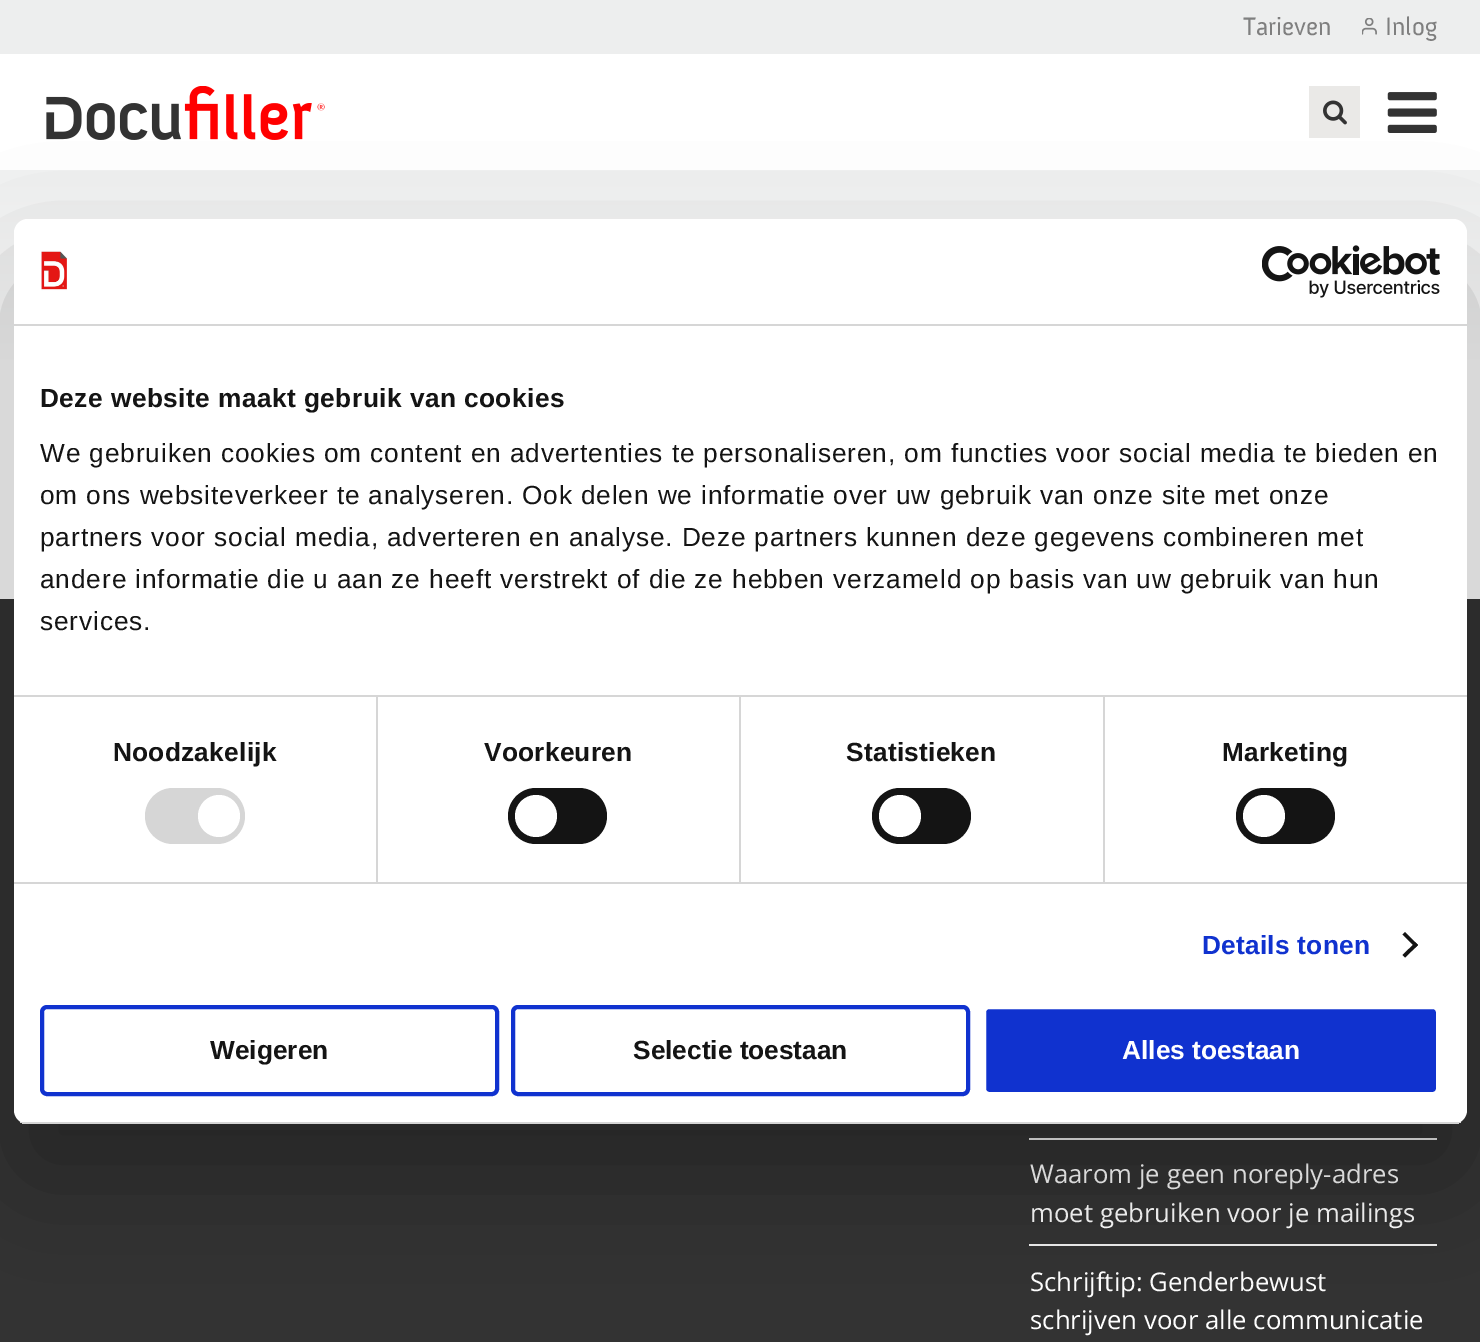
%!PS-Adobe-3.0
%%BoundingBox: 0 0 1480 1342
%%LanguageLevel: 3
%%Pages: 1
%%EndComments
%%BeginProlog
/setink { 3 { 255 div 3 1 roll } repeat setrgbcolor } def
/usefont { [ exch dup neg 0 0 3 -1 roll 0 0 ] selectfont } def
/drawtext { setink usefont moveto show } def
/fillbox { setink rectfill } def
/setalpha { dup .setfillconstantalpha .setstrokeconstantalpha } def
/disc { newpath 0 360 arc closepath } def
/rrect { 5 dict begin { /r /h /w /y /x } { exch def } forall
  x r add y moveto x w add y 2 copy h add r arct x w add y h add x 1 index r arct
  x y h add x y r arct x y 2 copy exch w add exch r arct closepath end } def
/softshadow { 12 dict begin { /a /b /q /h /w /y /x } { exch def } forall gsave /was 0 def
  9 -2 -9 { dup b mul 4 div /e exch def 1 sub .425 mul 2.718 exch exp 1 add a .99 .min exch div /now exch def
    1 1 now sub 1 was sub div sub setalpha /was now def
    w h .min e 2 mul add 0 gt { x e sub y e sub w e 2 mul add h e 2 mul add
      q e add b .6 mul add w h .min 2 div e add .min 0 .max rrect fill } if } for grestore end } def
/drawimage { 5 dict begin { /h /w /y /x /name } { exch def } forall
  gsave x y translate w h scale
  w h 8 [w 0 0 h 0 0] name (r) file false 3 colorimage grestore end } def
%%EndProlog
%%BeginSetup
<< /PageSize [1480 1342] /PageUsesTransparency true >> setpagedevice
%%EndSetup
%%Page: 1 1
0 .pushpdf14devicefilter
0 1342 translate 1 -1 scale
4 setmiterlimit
0 0 1480 1342 255 255 255 fillbox
gsave 0 170 moveto 1480 170 lineto 1480 360 lineto 0 360 lineto closepath clip newpath
<< /ShadingType 2 /ColorSpace /DeviceRGB /Coords [740 0 740 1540] /Extend [true true] /Function << /FunctionType 3 /Domain [0 1] /Functions [<< /FunctionType 2 /Domain [0 1] /C0 [0.929 0.933 0.933] /C1 [0.929 0.933 0.933] /N 1 >> << /FunctionType 2 /Domain [0 1] /C0 [0.929 0.933 0.933] /C1 [1 1 1] /N 1 >> << /FunctionType 2 /Domain [0 1] /C0 [1 1 1] /C1 [1 1 1] /N 1 >>] /Bounds [0.07 0.26] /Encode [0 1 0 1 0 1] >> >> shfill grestore
gsave 0 0 moveto 1480 0 lineto 1480 54 lineto 0 54 lineto closepath clip newpath
<< /ShadingType 2 /ColorSpace /DeviceRGB /Coords [740 0 740 401] /Extend [true true] /Function << /FunctionType 3 /Domain [0 1] /Functions [<< /FunctionType 2 /Domain [0 1] /C0 [0.929 0.933 0.933] /C1 [0.929 0.933 0.933] /N 1 >> << /FunctionType 2 /Domain [0 1] /C0 [0.929 0.933 0.933] /C1 [1 1 1] /N 1 >>] /Bounds [0.29] /Encode [0 1 0 1] >> >> shfill grestore
(Tarieven) 1243 35 /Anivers-Regular 25.75 127 127 127 drawtext
(assets/img1.rgb) 1362 18 15 17 drawimage
(Inlog) 1385 35 /Anivers-Regular 25.75 127 127 127 drawtext
(assets/img2.rgb) 46 86 279 54 drawimage
1309 86 51 52 234 233 231 fillbox
(assets/img3.rgb) 1323 100 24 25 drawimage
(assets/img4.rgb) 1387 92 50 41 drawimage
0 599 1480 743 51 51 51 fillbox
1029 1138 408 2 240 240 240 fillbox
(Waarom je geen noreply-adres) 1030 1183 /OpenSans-Regular 25.75 255 255 255 drawtext
(moet gebruiken voor je mailings) 1030 1222 /OpenSans-Regular 25.75 255 255 255 drawtext
1029 1244 408 2 240 240 240 fillbox
(Schrijftip: Genderbewust) 1030 1291 /OpenSans-Regular 25.75 255 255 255 drawtext
(schrijven voor alle communicatie) 1030 1329 /OpenSans-Regular 25.75 255 255 255 drawtext
0 0 0 setink
14 275 1453 905 14 59.5 0.3 softshadow
255 255 255 setink
14 219 1453 905 14 rrect fill
14 324 1453 2 214 214 214 fillbox
(assets/img5.rgb) 41 251 26 40 drawimage
(assets/img6.rgb) 1262 245 178 53 drawimage
14 695 1453 2 214 214 214 fillbox
/LiberationSans-Bold 26.25 usefont
20 20 20 setink
40 407 moveto 0.45 0 (Deze website maakt gebruik van cookies) ashow
/LiberationSans-Regular 26.25 usefont
40 462 moveto 0.88 0 (We gebruiken cookies om content en advertenties te personaliseren, om functies voor social media te bieden en) ashow
40 504 moveto 0.88 0 (om ons websiteverkeer te analyseren. Ook delen we informatie over uw gebruik van onze site met onze) ashow
40 546 moveto 0.88 0 (partners voor social media, adverteren en analyse. Deze partners kunnen deze gegevens combineren met) ashow
40 588 moveto 0.88 0 (andere informatie die u aan ze heeft verstrekt of die ze hebben verzameld op basis van uw gebruik van hun) ashow
40 630 moveto 0.88 0 (services.) ashow
14 882 1453 2 214 214 214 fillbox
376 697 2 185 214 214 214 fillbox
/LiberationSans-Bold 26.25 usefont
20 20 20 setink
113 761 moveto 0.25 0 (Noodzakelijk) ashow
214 214 214 setink
145 788 100 56 28 rrect fill
255 255 255 setink
219 816 21 disc fill
739 697 2 185 214 214 214 fillbox
20 20 20 setink
484 761 moveto 0.25 0 (Voorkeuren) ashow
508 788 99 56 28 rrect fill
255 255 255 setink
536 816 21 disc fill
1103 697 2 185 214 214 214 fillbox
20 20 20 setink
846 761 moveto 0.25 0 (Statistieken) ashow
872 788 99 56 28 rrect fill
255 255 255 setink
900 816 21 disc fill
20 20 20 setink
1222 761 moveto 0.25 0 (Marketing) ashow
1236 788 99 56 28 rrect fill
255 255 255 setink
1264 816 21 disc fill
16 50 207 setink
1202 954 moveto 0.25 0 (Details tonen) ashow
20 20 20 setink
1405 932 moveto 1418 945 lineto 1415.5 947.5 lineto 1402.5 934.5 lineto closepath fill
1415.5 942.5 moveto 1418 945 lineto 1405 957.5 lineto 1402.5 955 lineto closepath fill
gsave
14 219 1453 905 14 rrect clip newpath
14 1122 1453 2 214 214 214 fillbox
grestore
16 50 207 setink
4 setlinewidth
42 1007 455 87 5 rrect stroke
(Weigeren) 210 1059 /LiberationSans-Bold 26.25 20 20 20 drawtext
16 50 207 setink
513 1007 455 87 5 rrect stroke
(Selectie toestaan) 633 1059 /LiberationSans-Bold 26.25 20 20 20 drawtext
16 50 207 setink
984 1007 454 87 5 rrect gsave fill grestore
255 255 255 setink
stroke
(Alles toestaan) 1122 1059 /LiberationSans-Bold 26.25 255 255 255 drawtext
.poppdf14devicefilter showpage
%%EOF
